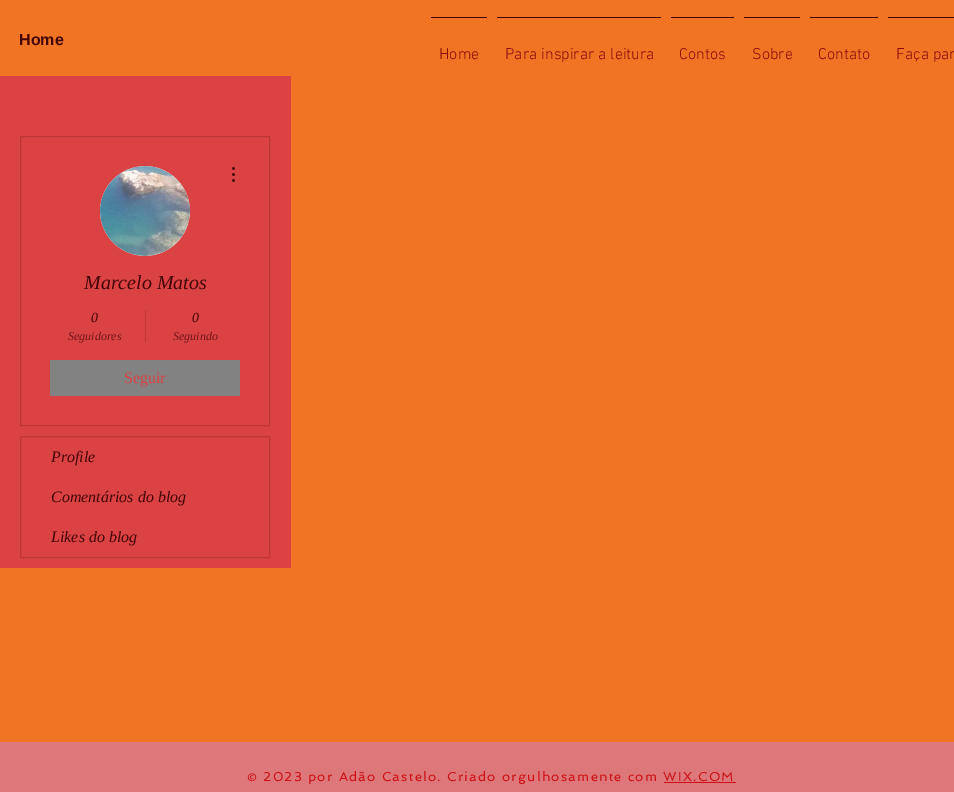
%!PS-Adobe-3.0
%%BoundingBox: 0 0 954 792
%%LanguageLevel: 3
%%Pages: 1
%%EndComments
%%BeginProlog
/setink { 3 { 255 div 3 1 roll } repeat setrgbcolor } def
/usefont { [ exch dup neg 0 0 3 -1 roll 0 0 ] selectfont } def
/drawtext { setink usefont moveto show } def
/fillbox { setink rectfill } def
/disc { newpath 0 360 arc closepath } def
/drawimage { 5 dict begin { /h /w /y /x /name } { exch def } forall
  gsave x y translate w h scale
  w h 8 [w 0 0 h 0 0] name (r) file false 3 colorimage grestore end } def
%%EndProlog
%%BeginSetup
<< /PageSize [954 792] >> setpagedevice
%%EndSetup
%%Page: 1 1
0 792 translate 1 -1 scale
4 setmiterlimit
0 0 954 792 241 116 36 fillbox
(Home) 19 45 /LiberationSans-Bold 16 68 5 6 drawtext
431 17 56 1 68 5 6 fillbox
(Home) 439 59 /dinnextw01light-Light 16 136 10 12 drawtext
497 17 164 1 68 5 6 fillbox
(Para inspirar a leitura) 505 59 /dinnextw01light-Light 16 136 10 12 drawtext
671 17 63 1 68 5 6 fillbox
(Contos) 679 59 /dinnextw01light-Light 16 136 10 12 drawtext
744 17 56 1 68 5 6 fillbox
(Sobre) 752 59 /dinnextw01light-Light 16 136 10 12 drawtext
810 17 68 1 68 5 6 fillbox
(Contato) 818 59 /dinnextw01light-Light 16 136 10 12 drawtext
888 17 66 1 68 5 6 fillbox
(Faça par) 896 59 /dinnextw01light-Light 16 136 10 12 drawtext
0 76 291 492 219 66 68 fillbox
189 54 56 setink
20.5 136.5 249 289 rectstroke
216 216 216 setink
145 211 45 disc fill
(assets/img1.rgb) 100 166 90 90 drawimage
(assets/img2.rgb) 232 167 3 15 drawimage
(Marcelo Matos) 84 289 /LiberationSerif-Italic 20 68 5 6 drawtext
(0) 91 322 /LiberationSerif-Italic 14 68 5 6 drawtext
(Seguidores) 68 340 /LiberationSerif-Italic 12 113 23 25 drawtext
145 310 1 32 189 54 56 fillbox
(0) 192 322 /LiberationSerif-Italic 14 68 5 6 drawtext
(Seguindo) 173 340 /LiberationSerif-Italic 12 113 23 25 drawtext
50 360 190 36 130 130 130 fillbox
(Seguir) 124 383 /LiberationSerif-Regular 16 219 66 68 drawtext
189 54 56 setink
20.5 436.5 249 121 rectstroke
(Profile) 51 462 /LiberationSerif-Italic 16 68 5 6 drawtext
(Comentários do blog) 51 502 /LiberationSerif-Italic 16 68 5 6 drawtext
(Likes do blog) 51 542 /LiberationSerif-Italic 16 68 5 6 drawtext
0 742 954 50 221 119 121 fillbox
/Spinnaker-Regular 13 usefont
204 16 19 setink
247 781 moveto 1.3 0 (© 2023 por Adão Castelo. Criado orgulhosamente com WIX.COM) ashow
664 782 72 1 204 16 19 fillbox
showpage
%%EOF
